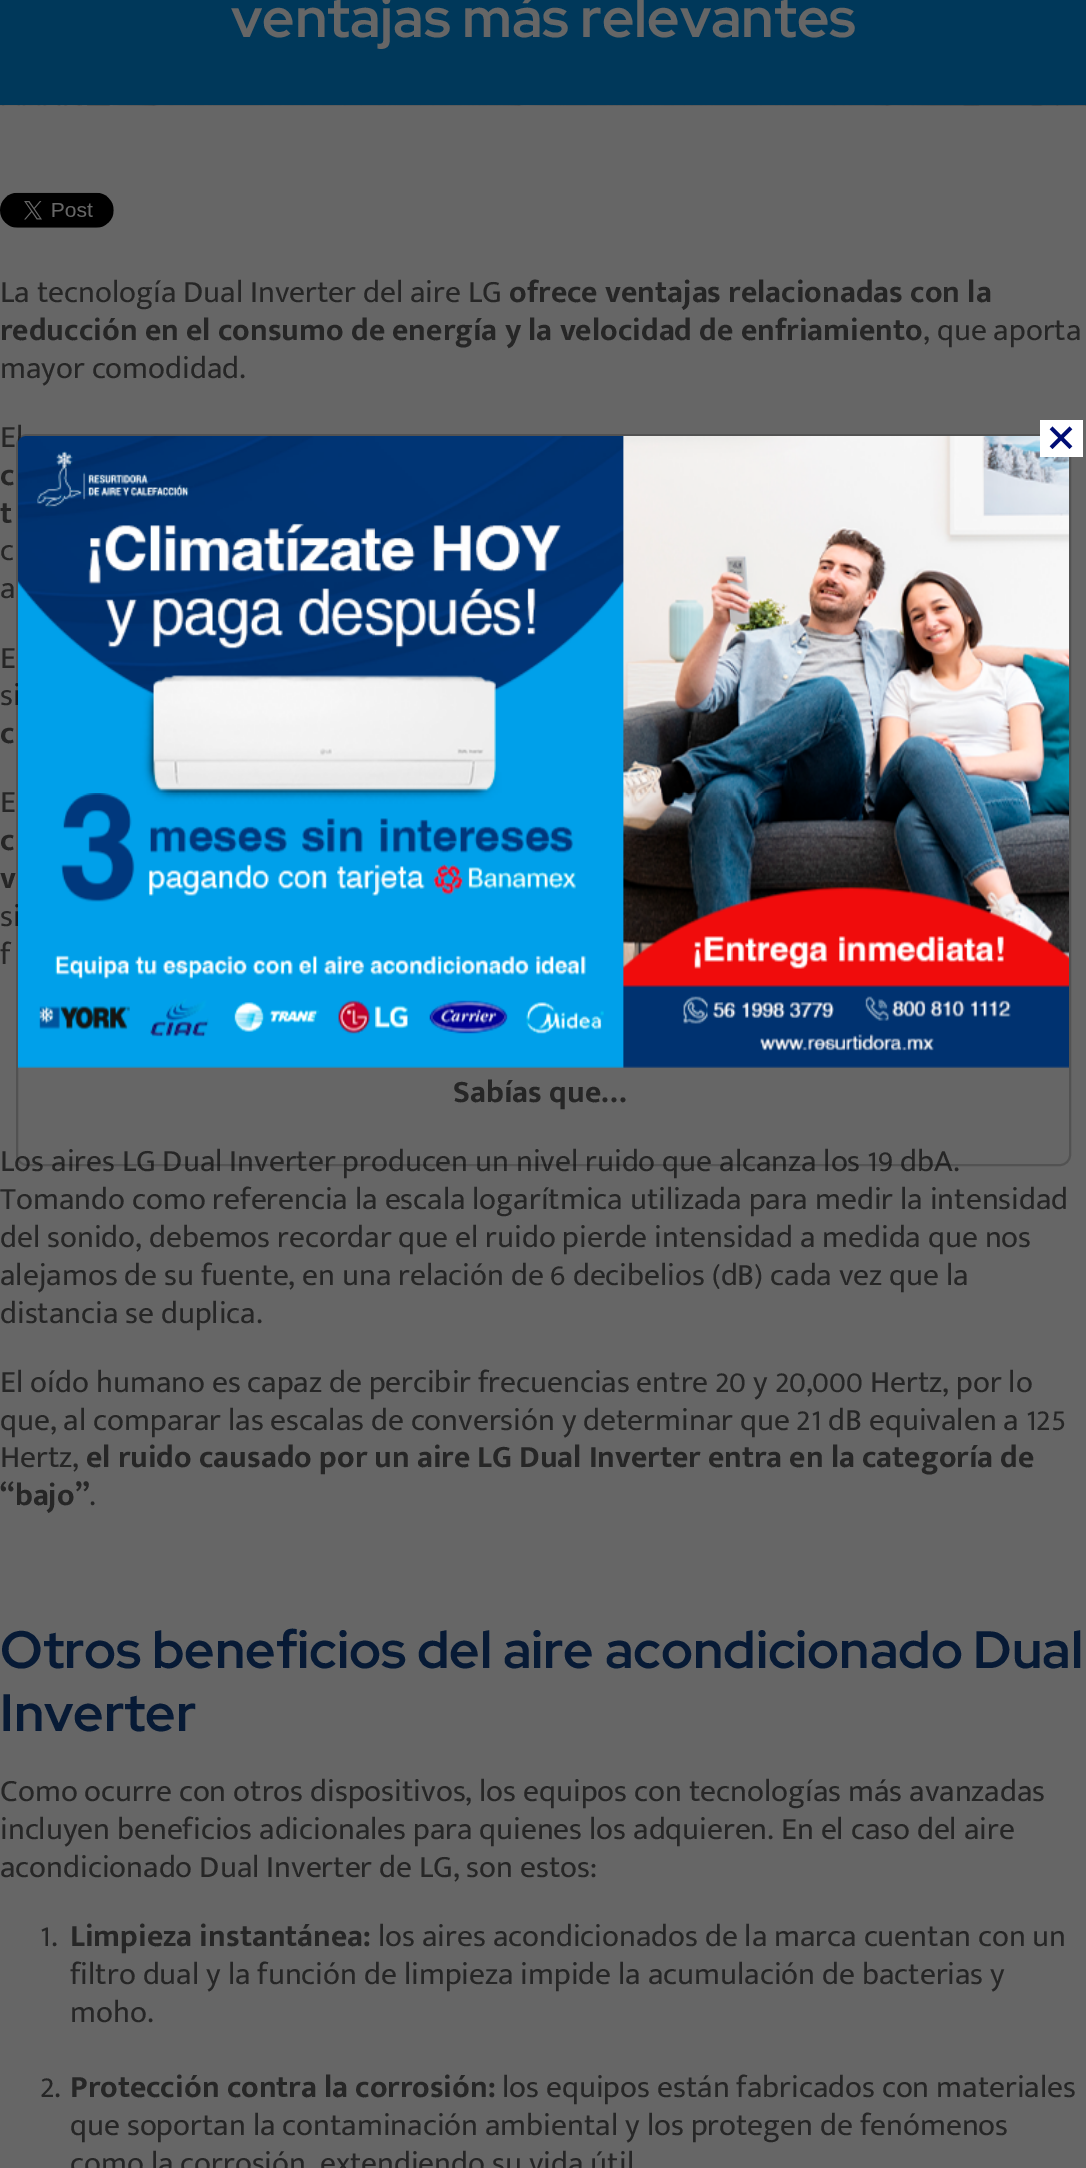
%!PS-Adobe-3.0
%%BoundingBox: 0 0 1086 2168
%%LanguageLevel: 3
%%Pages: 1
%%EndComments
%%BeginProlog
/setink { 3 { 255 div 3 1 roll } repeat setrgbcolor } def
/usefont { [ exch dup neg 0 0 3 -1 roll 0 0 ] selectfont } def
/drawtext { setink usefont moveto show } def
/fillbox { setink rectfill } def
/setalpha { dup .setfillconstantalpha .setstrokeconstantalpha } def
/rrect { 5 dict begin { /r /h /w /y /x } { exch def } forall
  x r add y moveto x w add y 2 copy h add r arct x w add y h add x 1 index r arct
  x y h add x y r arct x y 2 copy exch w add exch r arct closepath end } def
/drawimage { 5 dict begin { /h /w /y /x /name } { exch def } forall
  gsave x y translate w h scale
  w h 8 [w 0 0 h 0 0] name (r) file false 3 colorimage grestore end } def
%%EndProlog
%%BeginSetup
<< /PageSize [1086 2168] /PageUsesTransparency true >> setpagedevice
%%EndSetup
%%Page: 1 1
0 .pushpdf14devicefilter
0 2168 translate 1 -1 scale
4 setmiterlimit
0 0 1086 2168 102 102 102 fillbox
0 0 1086 105 0 56 90 fillbox
(ventajas más relevantes) 231 37 /RedHatDisplay-Bold 56 102 102 102 drawtext
(assets/img1.rgb) 0 105 1086 1 drawimage
(assets/img2.rgb) 0 192 114 36 drawimage
(La tecnología Dual Inverter del aire LG) 0 302 /MuktaMahee-Regular 31.5 38 38 38 drawtext
(ofrece ventajas relacionadas con la) 509 302 /MuktaMahee-Bold 31.5 38 38 38 drawtext
(reducción en el consumo de energía y la velocidad de enfriamiento) 0 340 /MuktaMahee-Bold 31.5 38 38 38 drawtext
(, que aporta) 923 340 /MuktaMahee-Regular 31.5 38 38 38 drawtext
(mayor comodidad.) 0 378 /MuktaMahee-Regular 31.5 38 38 38 drawtext
(El) 0 447 /MuktaMahee-Regular 31.5 38 38 38 drawtext
(c) 0 485 /MuktaMahee-Bold 31.5 38 38 38 drawtext
(t) 0 523 /MuktaMahee-Bold 31.5 38 38 38 drawtext
(c) 0 560 /MuktaMahee-Regular 31.5 38 38 38 drawtext
(a) 0 598 /MuktaMahee-Regular 31.5 38 38 38 drawtext
(E) 0 668 /MuktaMahee-Regular 31.5 38 38 38 drawtext
(si) 0 705 /MuktaMahee-Regular 31.5 38 38 38 drawtext
(c) 0 743 /MuktaMahee-Bold 31.5 38 38 38 drawtext
(E) 0 812 /MuktaMahee-Regular 31.5 38 38 38 drawtext
(c) 0 850 /MuktaMahee-Bold 31.5 38 38 38 drawtext
(v) 0 888 /MuktaMahee-Bold 31.5 38 38 38 drawtext
(si) 0 926 /MuktaMahee-Regular 31.5 38 38 38 drawtext
(f) 0 964 /MuktaMahee-Regular 31.5 38 38 38 drawtext
(Sabías que…) 453 1102 /MuktaMahee-Bold 31.5 38 38 38 drawtext
(Los aires LG Dual Inverter producen un nivel ruido que alcanza los 19 dbA.) 0 1171 /MuktaMahee-Regular 31.5 38 38 38 drawtext
(Tomando como referencia la escala logarítmica utilizada para medir la intensidad) 0 1209 /MuktaMahee-Regular 31.5 38 38 38 drawtext
(del sonido, debemos recordar que el ruido pierde intensidad a medida que nos) 0 1247 /MuktaMahee-Regular 31.5 38 38 38 drawtext
(alejamos de su fuente, en una relación de 6 decibelios \(dB\) cada vez que la) 0 1285 /MuktaMahee-Regular 31.5 38 38 38 drawtext
(distancia se duplica.) 0 1323 /MuktaMahee-Regular 31.5 38 38 38 drawtext
(El oído humano es capaz de percibir frecuencias entre 20 y 20,000 Hertz, por lo) 0 1392 /MuktaMahee-Regular 31.5 38 38 38 drawtext
(que, al comparar las escalas de conversión y determinar que 21 dB equivalen a 125) 0 1430 /MuktaMahee-Regular 31.5 38 38 38 drawtext
(Hertz,) 0 1467 /MuktaMahee-Regular 31.5 38 38 38 drawtext
(el ruido causado por un aire LG Dual Inverter entra en la categoría de) 86 1467 /MuktaMahee-Bold 31.5 38 38 38 drawtext
(“bajo”) 0 1505 /MuktaMahee-Bold 31.5 38 38 38 drawtext
(.) 89 1505 /MuktaMahee-Regular 31.5 38 38 38 drawtext
(Otros beneficios del aire acondicionado Dual) 0 1668 /RedHatDisplay-Bold 52.5 7 26 53 drawtext
(Inverter) 0 1731 /RedHatDisplay-Bold 52.5 7 26 53 drawtext
(Como ocurre con otros dispositivos, los equipos con tecnologías más avanzadas) 0 1801 /MuktaMahee-Regular 31.5 38 38 38 drawtext
(incluyen beneficios adicionales para quienes los adquieren. En el caso del aire) 0 1839 /MuktaMahee-Regular 31.5 38 38 38 drawtext
(acondicionado Dual Inverter de LG, son estos:) 0 1877 /MuktaMahee-Regular 31.5 38 38 38 drawtext
(1.) 40 1946 /MuktaMahee-Regular 31.5 38 38 38 drawtext
(Limpieza instantánea:) 70 1946 /MuktaMahee-Bold 31.5 38 38 38 drawtext
(los aires acondicionados de la marca cuentan con un) 378 1946 /MuktaMahee-Regular 31.5 38 38 38 drawtext
(filtro dual y la función de limpieza impide la acumulación de bacterias y) 70 1984 /MuktaMahee-Regular 31.5 38 38 38 drawtext
(moho.) 70 2022 /MuktaMahee-Regular 31.5 38 38 38 drawtext
(2.) 40 2097 /MuktaMahee-Regular 31.5 38 38 38 drawtext
(Protección contra la corrosión:) 70 2097 /MuktaMahee-Bold 31.5 38 38 38 drawtext
(los equipos están fabricados con materiales) 502 2097 /MuktaMahee-Regular 31.5 38 38 38 drawtext
(que soportan la contaminación ambiental y los protegen de fenómenos) 70 2135 /MuktaMahee-Regular 31.5 38 38 38 drawtext
(como la corrosión, extendiendo su vida útil) 70 2173 /MuktaMahee-Regular 31.5 38 38 38 drawtext
0.2 setalpha
0 0 0 setink
2 setlinewidth
17 435 1053 730 10 rrect stroke
1 setalpha
(assets/img3.rgb) 18 436 1051 632 drawimage
1040 420 43 37 255 255 255 fillbox
(×) 1047 459 /MuktaMahee-Regular 70 0 13 117 drawtext
.poppdf14devicefilter showpage
%%EOF
